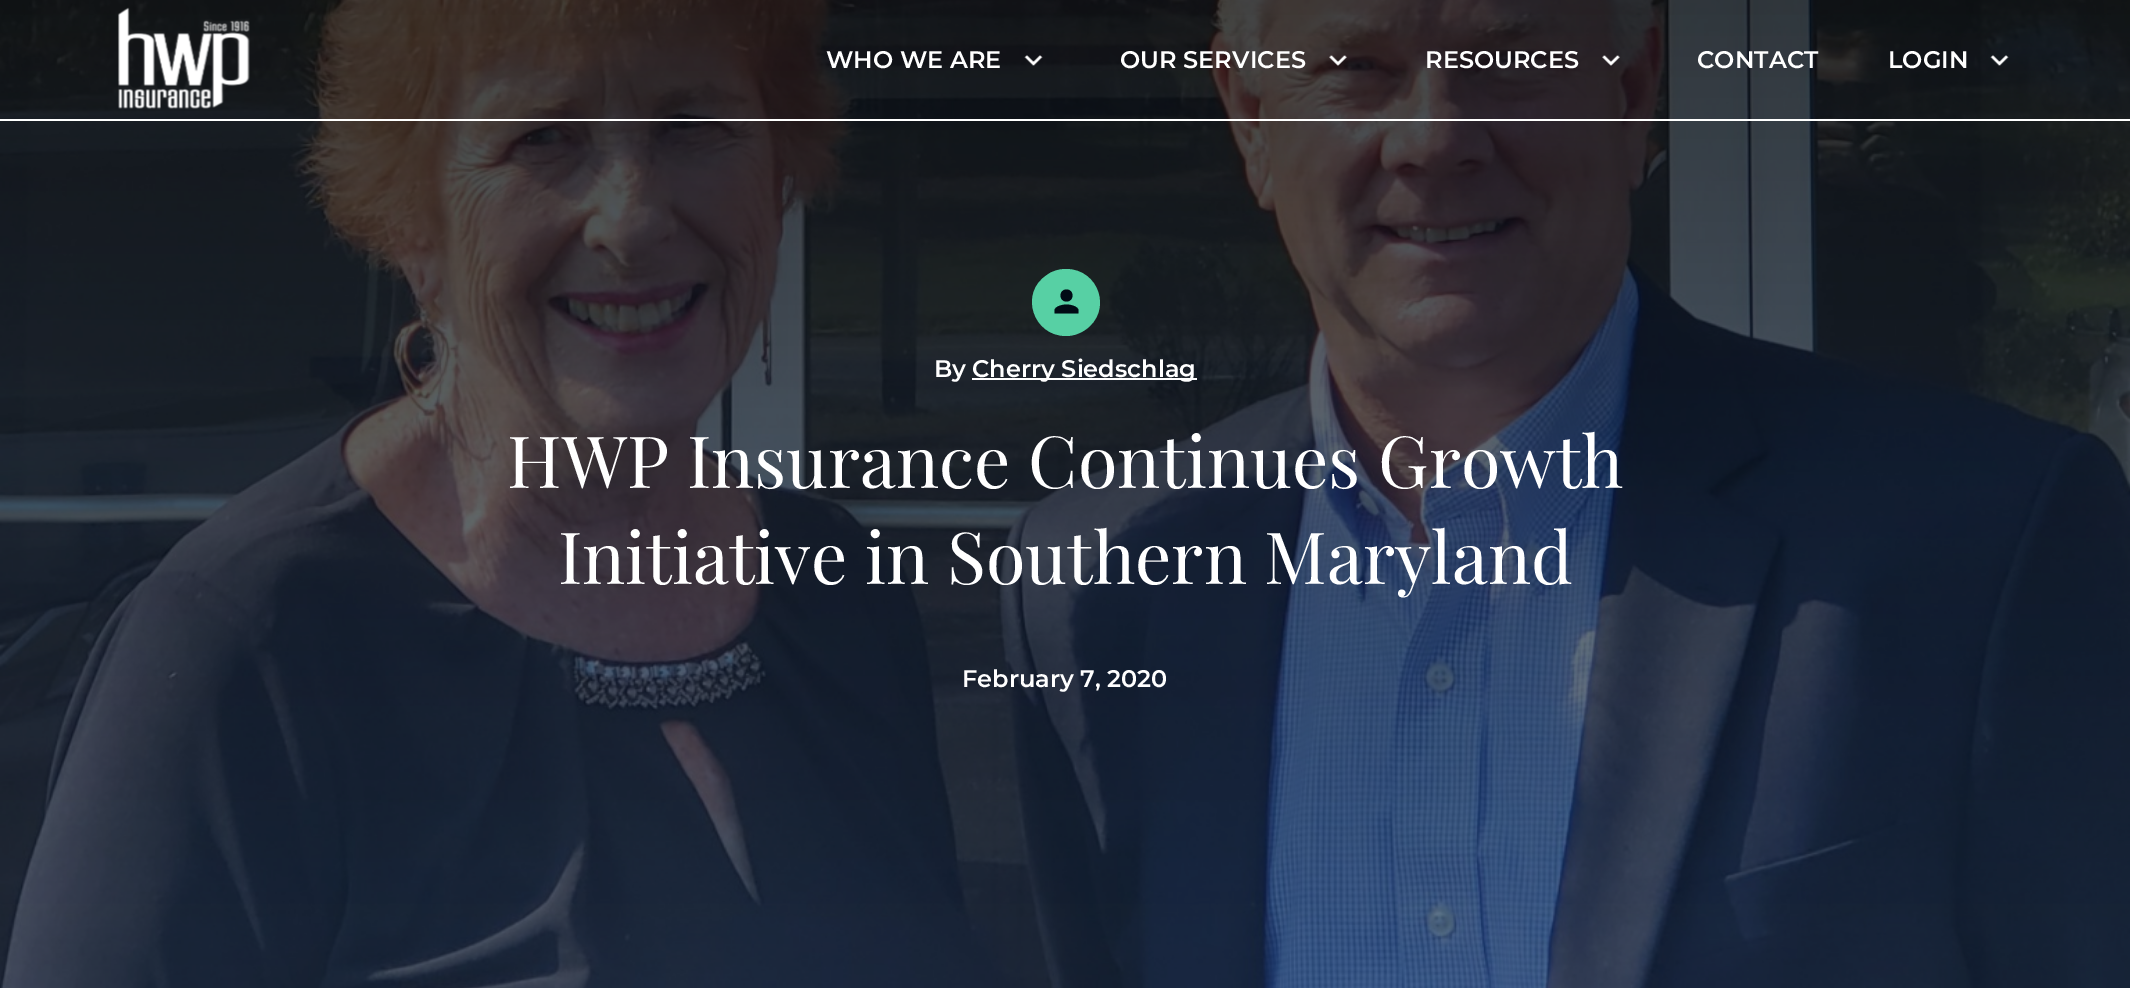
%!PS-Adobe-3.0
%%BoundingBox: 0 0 2130 988
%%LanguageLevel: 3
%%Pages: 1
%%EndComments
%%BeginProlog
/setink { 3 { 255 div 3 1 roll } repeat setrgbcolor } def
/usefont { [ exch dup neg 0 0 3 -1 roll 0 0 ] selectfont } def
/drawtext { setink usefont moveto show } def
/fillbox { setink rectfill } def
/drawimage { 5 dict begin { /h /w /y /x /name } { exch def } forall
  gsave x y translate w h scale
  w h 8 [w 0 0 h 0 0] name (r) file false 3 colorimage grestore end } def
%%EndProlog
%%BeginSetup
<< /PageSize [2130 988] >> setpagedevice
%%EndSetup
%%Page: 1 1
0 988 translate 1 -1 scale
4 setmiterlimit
0 0 2130 988 255 255 255 fillbox
(assets/img6.rgb) 0 0 2130 988 drawimage
(assets/img1.rgb) 118 7 132 103 drawimage
(WHO WE ARE) 826 68 /Montserrat-Thin 24 255 255 255 drawtext
(assets/img2.rgb) 1024 55 19 11 drawimage
(OUR SERVICES) 1120 68 /Montserrat-Thin 24 255 255 255 drawtext
(assets/img3.rgb) 1329 55 18 11 drawimage
(RESOURCES) 1425 68 /Montserrat-Thin 24 255 255 255 drawtext
(assets/img4.rgb) 1602 55 18 11 drawimage
(CONTACT) 1697 68 /Montserrat-Thin 24 255 255 255 drawtext
(LOGIN) 1888 68 /Montserrat-Thin 24 255 255 255 drawtext
(assets/img5.rgb) 1990 55 19 11 drawimage
0 119 2130 2 255 255 255 fillbox
87 208 164 setink
1066 269 moveto 1099 269 1113 311 1085 330 curveto 1079 334 1073 336 1066 336 curveto 1033 336 1019 293 1047 275 curveto 1052 271 1059 269 1066 269 curveto closepath fill
1 11 21 setink
1066.5 301.5 moveto 1074.5 301.5 1074.5 289.5 1066.5 289.5 curveto 1058.5 289.5 1058.5 301.5 1066.5 301.5 curveto closepath 1066.5 304.5 moveto 1062.5 304.5 1054.5 306.5 1054.5 310.5 curveto 1054.5 313.5 lineto 1078.5 313.5 lineto 1078.5 310.5 lineto 1078.5 306.5 1070.5 304.5 1066.5 304.5 curveto closepath fill
(By) 934 377 /Montserrat-Thin 24 255 255 255 drawtext
972 378 225 2 255 255 255 fillbox
(Cherry Siedschlag) 972 377 /Montserrat-Thin 24 255 255 255 drawtext
(HWP Insurance Continues Growth) 507 488 /PlayfairDisplay-Regular 72 255 255 255 drawtext
(Initiative in Southern Maryland) 558 584 /PlayfairDisplay-Regular 72 255 255 255 drawtext
(February 7, 2020) 962 687 /Montserrat-Thin 24 255 255 255 drawtext
showpage
%%EOF
